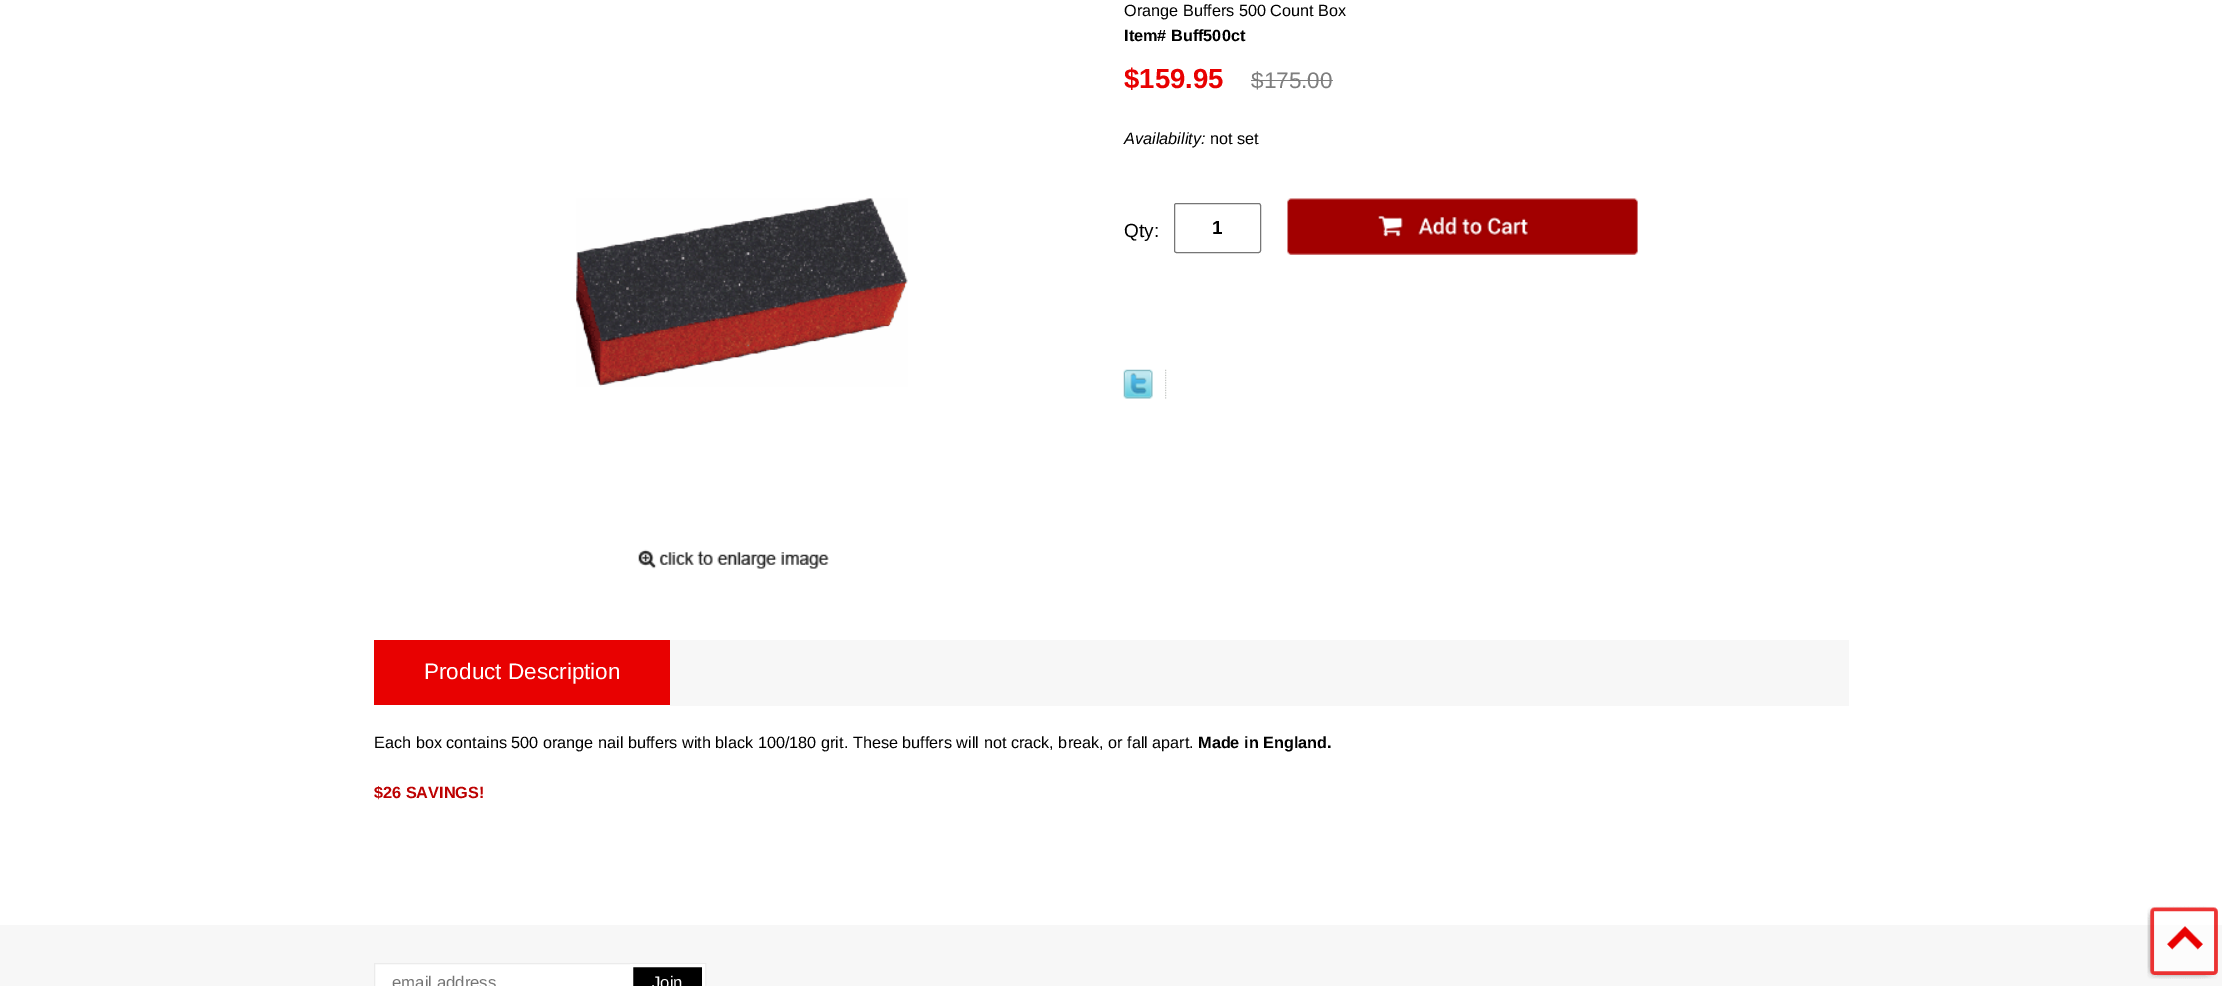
%!PS-Adobe-3.0
%%BoundingBox: 0 0 2222 986
%%LanguageLevel: 3
%%Pages: 1
%%EndComments
%%BeginProlog
/setink { 3 { 255 div 3 1 roll } repeat setrgbcolor } def
/usefont { [ exch dup neg 0 0 3 -1 roll 0 0 ] selectfont } def
/drawtext { setink usefont moveto show } def
/fillbox { setink rectfill } def
/rrect { 5 dict begin { /r /h /w /y /x } { exch def } forall
  x r add y moveto x w add y 2 copy h add r arct x w add y h add x 1 index r arct
  x y h add x y r arct x y 2 copy exch w add exch r arct closepath end } def
/drawimage { 5 dict begin { /h /w /y /x /name } { exch def } forall
  gsave x y translate w h scale
  w h 8 [w 0 0 h 0 0] name (r) file false 3 colorimage grestore end } def
%%EndProlog
%%BeginSetup
<< /PageSize [2222 986] >> setpagedevice
%%EndSetup
%%Page: 1 1
0 986 translate 1 -1 scale
4 setmiterlimit
0 0 2222 986 255 255 255 fillbox
(Orange Buffers 500 Count Box) 1124 16 /LiberationSans-Regular 16.25 0 0 0 drawtext
(Item# Buff500ct) 1124 41 /LiberationSans-Bold 16.25 0 0 0 drawtext
($159.95) 1124 88 /LiberationSans-Bold 27.5 232 1 1 drawtext
($175.00) 1251 88 /LiberationSans-Regular 22.5 126 126 126 drawtext
1251 80 82 1 126 126 126 fillbox
(Availability:) 1124 144 /LiberationSans-Italic 16.25 0 0 0 drawtext
(not set) 1210 144 /LiberationSans-Regular 16.25 0 0 0 drawtext
(Qty:) 1124 237 /LiberationSans-Regular 19 0 0 0 drawtext
118 118 118 setink
1174.5 203.5 86 49 2 rrect stroke
(1) 1212 234 /LiberationSans-Bold 19 0 0 0 drawtext
(assets/img1.rgb) 1287 198 351 57 drawimage
(assets/img2.rgb) 1123 369 30 30 drawimage
(assets/img3.rgb) 1165 369 2 30 drawimage
(assets/img4.rgb) 576 198 332 189 drawimage
(assets/img5.rgb) 638 549 191 20 drawimage
670 640 1179 66 247 247 247 fillbox
374 640 296 65 232 1 1 fillbox
(Product Description) 424 679 /LiberationSans-Regular 22.5 255 255 255 drawtext
(Each box contains 500 orange nail buffers with black 100/180 grit. These buffers will not crack, break, or fall apart.) 374 748 /LiberationSans-Regular 16.25 0 0 0 drawtext
(Made in England.) 1198 748 /LiberationSans-Bold 16.25 0 0 0 drawtext
($26 SAVINGS!) 374 798 /LiberationSans-Bold 16.25 189 1 1 drawtext
0 925 2222 61 247 247 247 fillbox
375 964 255 22 255 255 255 fillbox
235 235 235 setink
374.5 963.5 331 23 rectstroke
(email address) 392 988 /LiberationSans-Regular 16.75 117 117 117 drawtext
0 0 0 setink
631.5 965.5 moveto 703.5 965.5 lineto 703.5 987.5 lineto 631.5 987.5 lineto closepath gsave fill grestore
255 255 255 setink
3 setlinewidth
stroke
(Join) 652 988 /LiberationSans-Regular 16.75 255 255 255 drawtext
(assets/img6.rgb) 2147 906 71 73 drawimage
showpage
%%EOF
